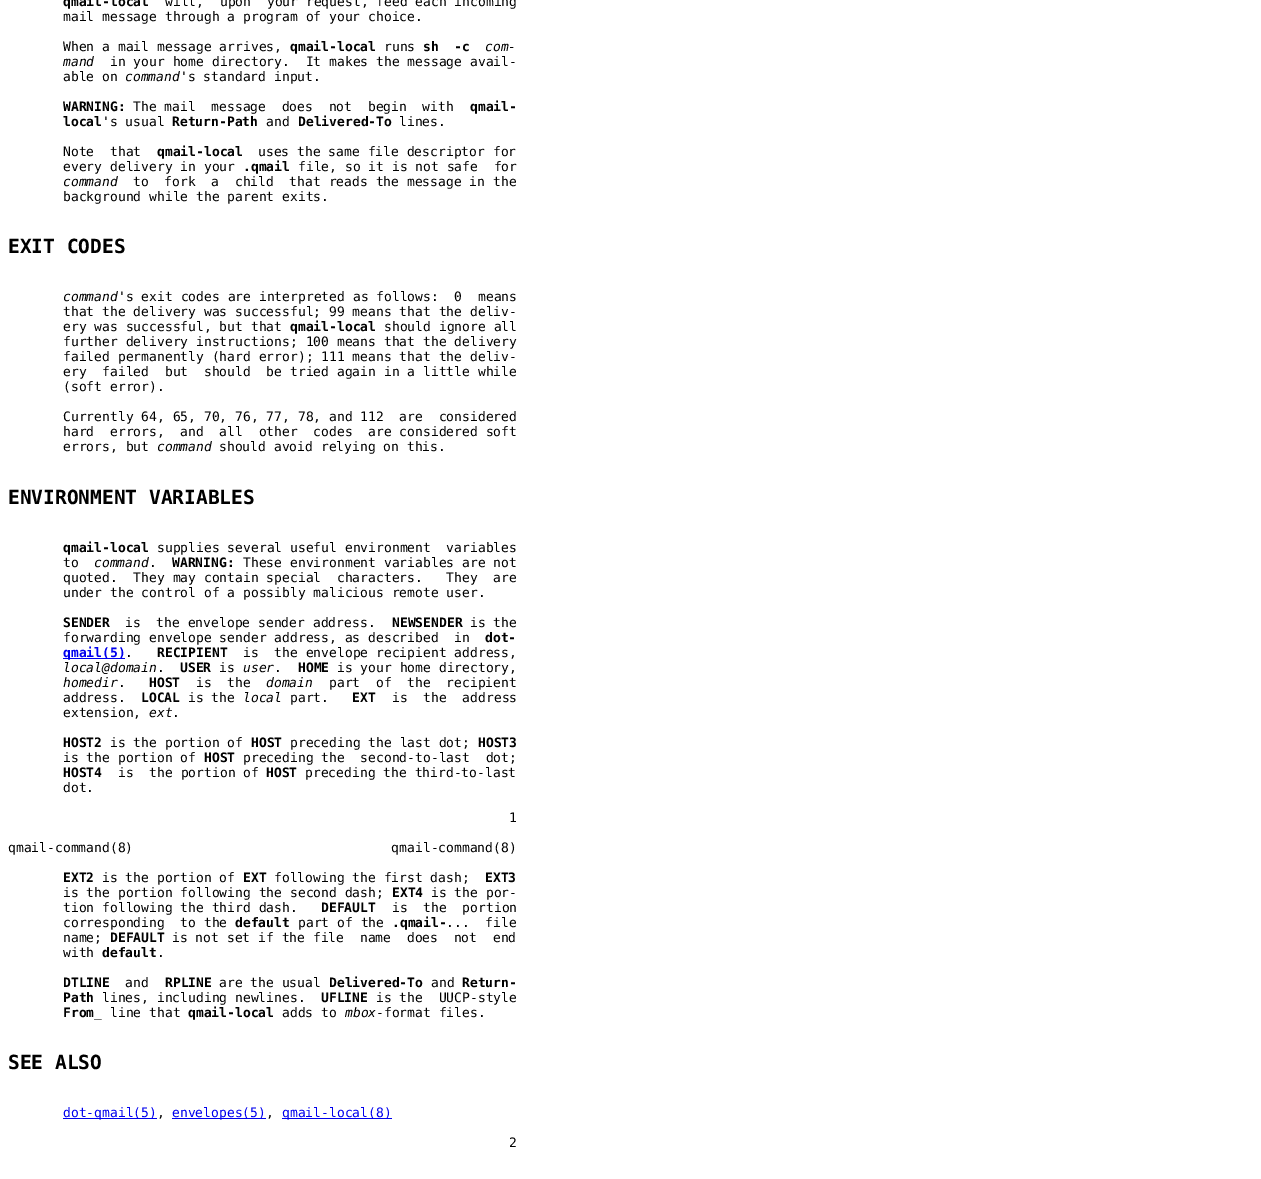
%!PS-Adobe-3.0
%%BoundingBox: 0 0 1261 1179
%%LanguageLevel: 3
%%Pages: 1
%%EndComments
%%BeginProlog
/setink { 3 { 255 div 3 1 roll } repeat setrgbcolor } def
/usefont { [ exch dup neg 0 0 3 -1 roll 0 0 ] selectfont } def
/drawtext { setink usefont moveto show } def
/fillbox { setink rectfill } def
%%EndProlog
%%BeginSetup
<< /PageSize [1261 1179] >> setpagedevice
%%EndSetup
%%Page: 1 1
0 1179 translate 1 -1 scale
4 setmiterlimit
0 0 1261 1179 255 255 255 fillbox
(qmail-local) 63 6 /DejaVuSansMono-Bold 13 0 0 0 drawtext
(will,  upon  your request, feed each incoming) 165 6 /DejaVuSansMono-Regular 13 0 0 0 drawtext
(mail message through a program of your choice.) 63 21 /DejaVuSansMono-Regular 13 0 0 0 drawtext
(When a mail message arrives,) 63 51 /DejaVuSansMono-Regular 13 0 0 0 drawtext
(qmail-local) 290 51 /DejaVuSansMono-Bold 13 0 0 0 drawtext
(runs) 384 51 /DejaVuSansMono-Regular 13 0 0 0 drawtext
(sh) 423 51 /DejaVuSansMono-Bold 13 0 0 0 drawtext
(-c) 454 51 /DejaVuSansMono-Bold 13 0 0 0 drawtext
(com-) 485 51 /DejaVuSansMono-Italic 13 0 0 0 drawtext
(mand) 63 66 /DejaVuSansMono-Italic 13 0 0 0 drawtext
(in your home directory.  It makes the message avail-) 110 66 /DejaVuSansMono-Regular 13 0 0 0 drawtext
(able on) 63 81 /DejaVuSansMono-Regular 13 0 0 0 drawtext
(command) 125 81 /DejaVuSansMono-Italic 13 0 0 0 drawtext
('s standard input.) 180 81 /DejaVuSansMono-Regular 13 0 0 0 drawtext
(WARNING:) 63 111 /DejaVuSansMono-Bold 13 0 0 0 drawtext
(The mail  message  does  not  begin  with) 133 111 /DejaVuSansMono-Regular 13 0 0 0 drawtext
(qmail-) 470 111 /DejaVuSansMono-Bold 13 0 0 0 drawtext
(local) 63 126 /DejaVuSansMono-Bold 13 0 0 0 drawtext
('s usual) 102 126 /DejaVuSansMono-Regular 13 0 0 0 drawtext
(Return-Path) 172 126 /DejaVuSansMono-Bold 13 0 0 0 drawtext
(and) 266 126 /DejaVuSansMono-Regular 13 0 0 0 drawtext
(Delivered-To) 298 126 /DejaVuSansMono-Bold 13 0 0 0 drawtext
(lines.) 399 126 /DejaVuSansMono-Regular 13 0 0 0 drawtext
(Note  that) 63 156 /DejaVuSansMono-Regular 13 0 0 0 drawtext
(qmail-local) 157 156 /DejaVuSansMono-Bold 13 0 0 0 drawtext
(uses the same file descriptor for) 258 156 /DejaVuSansMono-Regular 13 0 0 0 drawtext
(every delivery in your) 63 171 /DejaVuSansMono-Regular 13 0 0 0 drawtext
(.qmail) 243 171 /DejaVuSansMono-Bold 13 0 0 0 drawtext
(file, so it is not safe  for) 298 171 /DejaVuSansMono-Regular 13 0 0 0 drawtext
(command) 63 186 /DejaVuSansMono-Italic 13 0 0 0 drawtext
(to  fork  a  child  that reads the message in the) 133 186 /DejaVuSansMono-Regular 13 0 0 0 drawtext
(background while the parent exits.) 63 201 /DejaVuSansMono-Regular 13 0 0 0 drawtext
(EXIT CODES) 8 253 /DejaVuSansMono-Bold 19.5 0 0 0 drawtext
(command) 63 301 /DejaVuSansMono-Italic 13 0 0 0 drawtext
('s exit codes are interpreted as follows:  0  means) 118 301 /DejaVuSansMono-Regular 13 0 0 0 drawtext
(that the delivery was successful; 99 means that the deliv-) 63 316 /DejaVuSansMono-Regular 13 0 0 0 drawtext
(ery was successful, but that) 63 331 /DejaVuSansMono-Regular 13 0 0 0 drawtext
(qmail-local) 290 331 /DejaVuSansMono-Bold 13 0 0 0 drawtext
(should ignore all) 384 331 /DejaVuSansMono-Regular 13 0 0 0 drawtext
(further delivery instructions; 100 means that the delivery) 63 346 /DejaVuSansMono-Regular 13 0 0 0 drawtext
(failed permanently \(hard error\); 111 means that the deliv-) 63 361 /DejaVuSansMono-Regular 13 0 0 0 drawtext
(ery  failed  but  should  be tried again in a little while) 63 376 /DejaVuSansMono-Regular 13 0 0 0 drawtext
(\(soft error\).) 63 391 /DejaVuSansMono-Regular 13 0 0 0 drawtext
(Currently 64, 65, 70, 76, 77, 78, and 112  are  considered) 63 421 /DejaVuSansMono-Regular 13 0 0 0 drawtext
(hard  errors,  and  all  other  codes  are considered soft) 63 436 /DejaVuSansMono-Regular 13 0 0 0 drawtext
(errors, but) 63 451 /DejaVuSansMono-Regular 13 0 0 0 drawtext
(command) 157 451 /DejaVuSansMono-Italic 13 0 0 0 drawtext
(should avoid relying on this.) 219 451 /DejaVuSansMono-Regular 13 0 0 0 drawtext
(ENVIRONMENT VARIABLES) 8 504 /DejaVuSansMono-Bold 19.5 0 0 0 drawtext
(qmail-local) 63 552 /DejaVuSansMono-Bold 13 0 0 0 drawtext
(supplies several useful environment  variables) 157 552 /DejaVuSansMono-Regular 13 0 0 0 drawtext
(to) 63 567 /DejaVuSansMono-Regular 13 0 0 0 drawtext
(command) 94 567 /DejaVuSansMono-Italic 13 0 0 0 drawtext
(.) 149 567 /DejaVuSansMono-Regular 13 0 0 0 drawtext
(WARNING:) 172 567 /DejaVuSansMono-Bold 13 0 0 0 drawtext
(These environment variables are not) 243 567 /DejaVuSansMono-Regular 13 0 0 0 drawtext
(quoted.  They may contain special  characters.   They  are) 63 582 /DejaVuSansMono-Regular 13 0 0 0 drawtext
(under the control of a possibly malicious remote user.) 63 597 /DejaVuSansMono-Regular 13 0 0 0 drawtext
(SENDER) 63 627 /DejaVuSansMono-Bold 13 0 0 0 drawtext
(is  the envelope sender address.) 125 627 /DejaVuSansMono-Regular 13 0 0 0 drawtext
(NEWSENDER) 392 627 /DejaVuSansMono-Bold 13 0 0 0 drawtext
(is the) 470 627 /DejaVuSansMono-Regular 13 0 0 0 drawtext
(forwarding envelope sender address, as described  in) 63 642 /DejaVuSansMono-Regular 13 0 0 0 drawtext
(dot-) 485 642 /DejaVuSansMono-Bold 13 0 0 0 drawtext
63 658 62 1 0 0 238 fillbox
(qmail\(5\)) 63 657 /DejaVuSansMono-Bold 13 0 0 238 drawtext
(.) 125 657 /DejaVuSansMono-Regular 13 0 0 0 drawtext
(RECIPIENT) 157 657 /DejaVuSansMono-Bold 13 0 0 0 drawtext
(is  the envelope recipient address,) 243 657 /DejaVuSansMono-Regular 13 0 0 0 drawtext
(local@domain) 63 672 /DejaVuSansMono-Italic 13 0 0 0 drawtext
(.) 157 672 /DejaVuSansMono-Regular 13 0 0 0 drawtext
(USER) 180 672 /DejaVuSansMono-Bold 13 0 0 0 drawtext
(is) 219 672 /DejaVuSansMono-Regular 13 0 0 0 drawtext
(user) 243 672 /DejaVuSansMono-Italic 13 0 0 0 drawtext
(.) 274 672 /DejaVuSansMono-Regular 13 0 0 0 drawtext
(HOME) 298 672 /DejaVuSansMono-Bold 13 0 0 0 drawtext
(is your home directory,) 337 672 /DejaVuSansMono-Regular 13 0 0 0 drawtext
(homedir) 63 687 /DejaVuSansMono-Italic 13 0 0 0 drawtext
(.) 118 687 /DejaVuSansMono-Regular 13 0 0 0 drawtext
(HOST) 149 687 /DejaVuSansMono-Bold 13 0 0 0 drawtext
(is  the) 196 687 /DejaVuSansMono-Regular 13 0 0 0 drawtext
(domain) 266 687 /DejaVuSansMono-Italic 13 0 0 0 drawtext
(part  of  the  recipient) 329 687 /DejaVuSansMono-Regular 13 0 0 0 drawtext
(address.) 63 702 /DejaVuSansMono-Regular 13 0 0 0 drawtext
(LOCAL) 141 702 /DejaVuSansMono-Bold 13 0 0 0 drawtext
(is the) 188 702 /DejaVuSansMono-Regular 13 0 0 0 drawtext
(local) 243 702 /DejaVuSansMono-Italic 13 0 0 0 drawtext
(part.) 290 702 /DejaVuSansMono-Regular 13 0 0 0 drawtext
(EXT) 352 702 /DejaVuSansMono-Bold 13 0 0 0 drawtext
(is  the  address) 392 702 /DejaVuSansMono-Regular 13 0 0 0 drawtext
(extension,) 63 717 /DejaVuSansMono-Regular 13 0 0 0 drawtext
(ext) 149 717 /DejaVuSansMono-Italic 13 0 0 0 drawtext
(.) 172 717 /DejaVuSansMono-Regular 13 0 0 0 drawtext
(HOST2) 63 747 /DejaVuSansMono-Bold 13 0 0 0 drawtext
(is the portion of) 110 747 /DejaVuSansMono-Regular 13 0 0 0 drawtext
(HOST) 251 747 /DejaVuSansMono-Bold 13 0 0 0 drawtext
(preceding the last dot;) 290 747 /DejaVuSansMono-Regular 13 0 0 0 drawtext
(HOST3) 478 747 /DejaVuSansMono-Bold 13 0 0 0 drawtext
(is the portion of) 63 762 /DejaVuSansMono-Regular 13 0 0 0 drawtext
(HOST) 204 762 /DejaVuSansMono-Bold 13 0 0 0 drawtext
(preceding the  second-to-last  dot;) 243 762 /DejaVuSansMono-Regular 13 0 0 0 drawtext
(HOST4) 63 777 /DejaVuSansMono-Bold 13 0 0 0 drawtext
(is  the portion of) 118 777 /DejaVuSansMono-Regular 13 0 0 0 drawtext
(HOST) 266 777 /DejaVuSansMono-Bold 13 0 0 0 drawtext
(preceding the third-to-last) 305 777 /DejaVuSansMono-Regular 13 0 0 0 drawtext
(dot.) 63 792 /DejaVuSansMono-Regular 13 0 0 0 drawtext
(1) 509 822 /DejaVuSansMono-Regular 13 0 0 0 drawtext
(qmail-command\(8\)                                 qmail-command\(8\)) 8 852 /DejaVuSansMono-Regular 13 0 0 0 drawtext
(EXT2) 63 882 /DejaVuSansMono-Bold 13 0 0 0 drawtext
(is the portion of) 102 882 /DejaVuSansMono-Regular 13 0 0 0 drawtext
(EXT) 243 882 /DejaVuSansMono-Bold 13 0 0 0 drawtext
(following the first dash;) 274 882 /DejaVuSansMono-Regular 13 0 0 0 drawtext
(EXT3) 485 882 /DejaVuSansMono-Bold 13 0 0 0 drawtext
(is the portion following the second dash;) 63 897 /DejaVuSansMono-Regular 13 0 0 0 drawtext
(EXT4) 392 897 /DejaVuSansMono-Bold 13 0 0 0 drawtext
(is the por-) 431 897 /DejaVuSansMono-Regular 13 0 0 0 drawtext
(tion following the third dash.) 63 912 /DejaVuSansMono-Regular 13 0 0 0 drawtext
(DEFAULT) 321 912 /DejaVuSansMono-Bold 13 0 0 0 drawtext
(is  the  portion) 392 912 /DejaVuSansMono-Regular 13 0 0 0 drawtext
(corresponding  to the) 63 927 /DejaVuSansMono-Regular 13 0 0 0 drawtext
(default) 235 927 /DejaVuSansMono-Bold 13 0 0 0 drawtext
(part of the) 298 927 /DejaVuSansMono-Regular 13 0 0 0 drawtext
(.qmail-) 392 927 /DejaVuSansMono-Bold 13 0 0 0 drawtext
(...  file) 446 927 /DejaVuSansMono-Regular 13 0 0 0 drawtext
(name;) 63 942 /DejaVuSansMono-Regular 13 0 0 0 drawtext
(DEFAULT) 110 942 /DejaVuSansMono-Bold 13 0 0 0 drawtext
(is not set if the file  name  does  not  end) 172 942 /DejaVuSansMono-Regular 13 0 0 0 drawtext
(with) 63 957 /DejaVuSansMono-Regular 13 0 0 0 drawtext
(default) 102 957 /DejaVuSansMono-Bold 13 0 0 0 drawtext
(.) 157 957 /DejaVuSansMono-Regular 13 0 0 0 drawtext
(DTLINE) 63 987 /DejaVuSansMono-Bold 13 0 0 0 drawtext
(and) 125 987 /DejaVuSansMono-Regular 13 0 0 0 drawtext
(RPLINE) 165 987 /DejaVuSansMono-Bold 13 0 0 0 drawtext
(are the usual) 219 987 /DejaVuSansMono-Regular 13 0 0 0 drawtext
(Delivered-To) 329 987 /DejaVuSansMono-Bold 13 0 0 0 drawtext
(and) 431 987 /DejaVuSansMono-Regular 13 0 0 0 drawtext
(Return-) 462 987 /DejaVuSansMono-Bold 13 0 0 0 drawtext
(Path) 63 1002 /DejaVuSansMono-Bold 13 0 0 0 drawtext
(lines, including newlines.) 102 1002 /DejaVuSansMono-Regular 13 0 0 0 drawtext
(UFLINE) 321 1002 /DejaVuSansMono-Bold 13 0 0 0 drawtext
(is the  UUCP-style) 376 1002 /DejaVuSansMono-Regular 13 0 0 0 drawtext
(From) 63 1017 /DejaVuSansMono-Bold 13 0 0 0 drawtext
(line that) 110 1017 /DejaVuSansMono-Regular 13 0 0 0 drawtext
(qmail-local) 188 1017 /DejaVuSansMono-Bold 13 0 0 0 drawtext
(adds to) 282 1017 /DejaVuSansMono-Regular 13 0 0 0 drawtext
(mbox) 345 1017 /DejaVuSansMono-Italic 13 0 0 0 drawtext
(-format files.) 376 1017 /DejaVuSansMono-Regular 13 0 0 0 drawtext
(_) 94 1017 /DejaVuSansMono-Italic 13 0 0 0 drawtext
(SEE ALSO) 8 1069 /DejaVuSansMono-Bold 19.5 0 0 0 drawtext
63 1118 94 1 0 0 238 fillbox
(dot-qmail\(5\)) 63 1117 /DejaVuSansMono-Regular 13 0 0 238 drawtext
(,) 157 1117 /DejaVuSansMono-Regular 13 0 0 0 drawtext
172 1118 94 1 0 0 238 fillbox
(envelopes\(5\)) 172 1117 /DejaVuSansMono-Regular 13 0 0 238 drawtext
(,) 266 1117 /DejaVuSansMono-Regular 13 0 0 0 drawtext
282 1118 110 1 0 0 238 fillbox
(qmail-local\(8\)) 282 1117 /DejaVuSansMono-Regular 13 0 0 238 drawtext
(2) 509 1147 /DejaVuSansMono-Regular 13 0 0 0 drawtext
showpage
%%EOF
